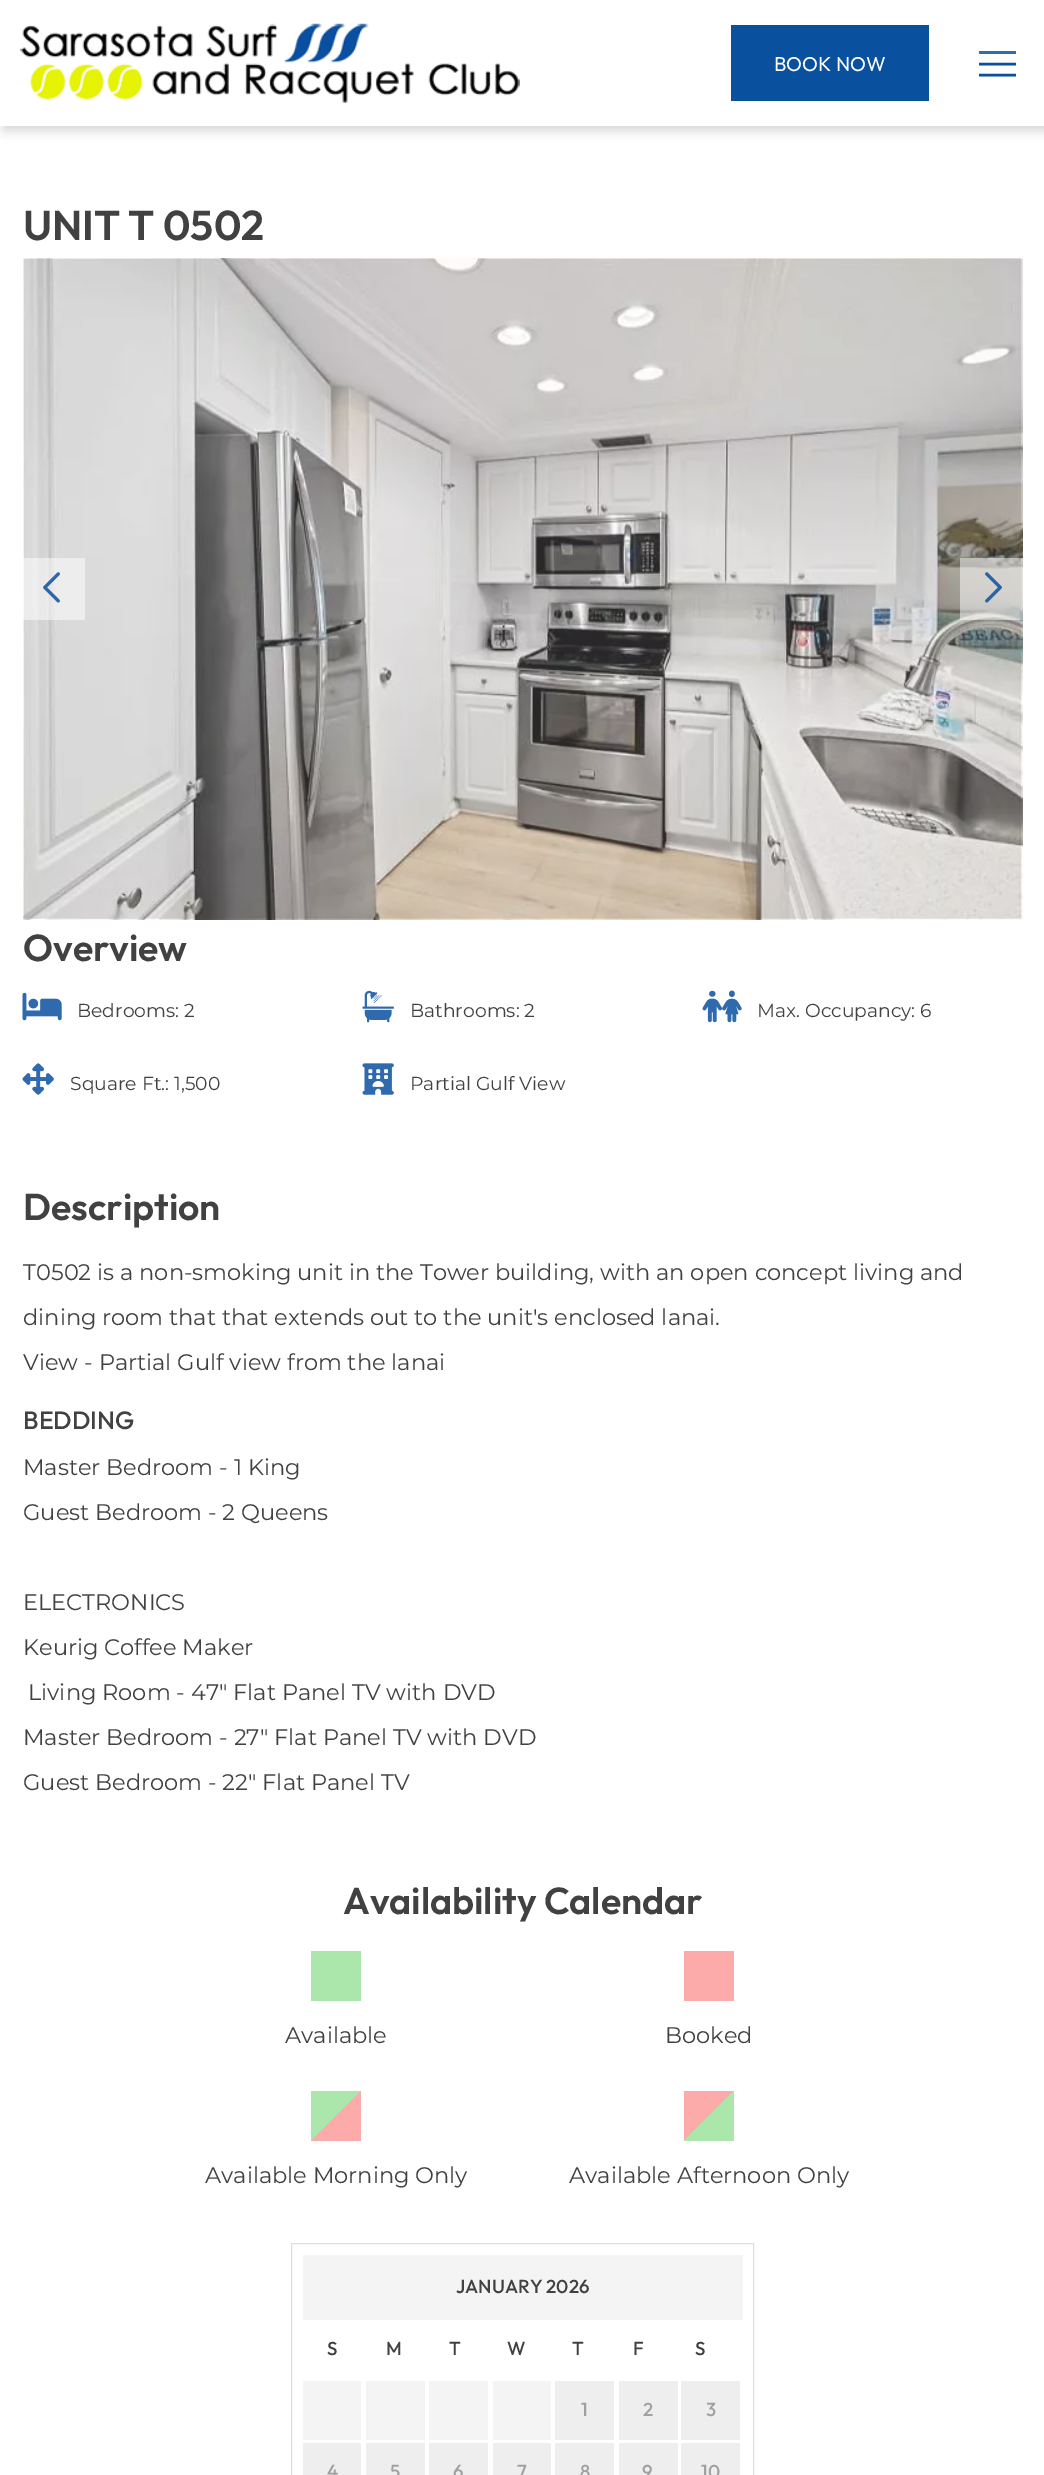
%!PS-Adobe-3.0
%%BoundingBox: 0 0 1044 2475
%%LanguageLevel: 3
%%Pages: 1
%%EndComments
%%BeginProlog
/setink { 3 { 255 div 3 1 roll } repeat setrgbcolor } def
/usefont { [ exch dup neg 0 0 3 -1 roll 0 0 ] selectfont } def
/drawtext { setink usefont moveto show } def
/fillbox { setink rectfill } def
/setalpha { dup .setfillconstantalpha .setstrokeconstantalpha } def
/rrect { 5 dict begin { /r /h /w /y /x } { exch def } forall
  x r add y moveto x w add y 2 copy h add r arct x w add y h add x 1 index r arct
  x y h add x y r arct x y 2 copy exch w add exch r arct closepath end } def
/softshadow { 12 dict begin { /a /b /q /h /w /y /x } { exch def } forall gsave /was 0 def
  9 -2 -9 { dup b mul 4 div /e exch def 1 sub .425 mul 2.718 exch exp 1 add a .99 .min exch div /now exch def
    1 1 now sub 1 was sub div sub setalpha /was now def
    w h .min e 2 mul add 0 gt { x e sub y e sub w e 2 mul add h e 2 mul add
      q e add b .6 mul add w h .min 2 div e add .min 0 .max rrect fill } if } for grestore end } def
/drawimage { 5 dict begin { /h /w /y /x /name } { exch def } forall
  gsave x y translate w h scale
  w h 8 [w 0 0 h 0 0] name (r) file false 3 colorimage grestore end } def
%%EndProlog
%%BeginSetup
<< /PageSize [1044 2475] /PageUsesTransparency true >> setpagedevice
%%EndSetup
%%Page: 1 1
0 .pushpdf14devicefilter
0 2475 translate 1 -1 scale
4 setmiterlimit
0 0 1044 2475 255 255 255 fillbox
0 0 0 setink
4 4 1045 126 0 6 0.18 softshadow
0 0 1044 126 255 255 255 fillbox
(assets/img1.rgb) 20 23 500 80 drawimage
731 25 198 76 9 80 159 fillbox
(BOOK NOW) 774 71 /Outfit-Regular 20 255 255 255 drawtext
979 51 37 3 50 109 175 fillbox
9 80 159 setink
2.5 setlinewidth
979 64 moveto 1016 64 lineto 979 75 moveto 1016 75 lineto stroke
(UNIT T 0502) 23 240 /Outfit-SemiBold 41.75 65 65 65 drawtext
(assets/img2.rgb) 23 258 1000 662 drawimage
0.5 setalpha
23 558 62 62 255 255 255 fillbox
1 setalpha
(assets/img3.rgb) 43 572 17 31 drawimage
0.5 setalpha
960 558 63 62 255 255 255 fillbox
1 setalpha
(assets/img4.rgb) 985 572 17 31 drawimage
(Overview) 23 961 /Outfit-SemiBold 37.5 65 65 65 drawtext
(assets/img5.rgb) 22 992 40 29 drawimage
(Bedrooms: 2) 77 1017 /Montserrat-Regular 18.75 65 65 65 drawtext
(assets/img6.rgb) 362 990 32 33 drawimage
(Bathrooms: 2) 410 1017 /Montserrat-Regular 18.75 65 65 65 drawtext
(assets/img7.rgb) 702 990 40 33 drawimage
(Max. Occupancy: 6) 757 1017 /Montserrat-Regular 18.75 65 65 65 drawtext
(assets/img8.rgb) 22 1063 32 32 drawimage
(Square Ft.: 1,500) 70 1090 /Montserrat-Regular 18.75 65 65 65 drawtext
(assets/img9.rgb) 362 1063 32 32 drawimage
(Partial Gulf View) 410 1090 /Montserrat-Regular 18.75 65 65 65 drawtext
(Description) 23 1220 /Outfit-SemiBold 37.5 65 65 65 drawtext
(T0502 is a non-smoking unit in the Tower building, with an open concept living and) 23 1280 /Montserrat-Regular 22.5 65 65 65 drawtext
(dining room that that extends out to the unit's enclosed lanai.) 23 1325 /Montserrat-Regular 22.5 65 65 65 drawtext
(View - Partial Gulf view from the lanai) 23 1370 /Montserrat-Regular 22.5 65 65 65 drawtext
(BEDDING) 23 1429 /Outfit-Medium 25 65 65 65 drawtext
(Master Bedroom - 1 King) 23 1475 /Montserrat-Regular 22.5 65 65 65 drawtext
(Guest Bedroom - 2 Queens) 23 1520 /Montserrat-Regular 22.5 65 65 65 drawtext
(ELECTRONICS) 23 1610 /Montserrat-Regular 22.5 65 65 65 drawtext
(Keurig Coffee Maker) 23 1655 /Montserrat-Regular 22.5 65 65 65 drawtext
(Living Room - 47" Flat Panel TV with DVD) 28 1700 /Montserrat-Regular 22.5 65 65 65 drawtext
(Master Bedroom - 27" Flat Panel TV with DVD) 23 1745 /Montserrat-Regular 22.5 65 65 65 drawtext
(Guest Bedroom - 22" Flat Panel TV) 23 1790 /Montserrat-Regular 22.5 65 65 65 drawtext
(Availability Calendar) 343 1914 /Outfit-SemiBold 37.5 65 65 65 drawtext
311 1951 50 50 171 230 171 fillbox
(Available) 285 2043 /Montserrat-Regular 22.5 65 65 65 drawtext
684 1951 50 50 253 170 170 fillbox
(Booked) 665 2043 /Montserrat-Regular 22.5 65 65 65 drawtext
gsave 311 2091 moveto 361 2091 lineto 361 2141 lineto 311 2141 lineto closepath clip newpath
<< /ShadingType 2 /ColorSpace /DeviceRGB /Coords [361 2141 311 2091] /Extend [true true] /Function << /FunctionType 3 /Domain [0 1] /Functions [<< /FunctionType 2 /Domain [0 1] /C0 [0.992 0.667 0.667] /C1 [0.992 0.667 0.667] /N 1 >> << /FunctionType 2 /Domain [0 1] /C0 [0.671 0.902 0.671] /C1 [0.671 0.902 0.671] /N 1 >>] /Bounds [0.5] /Encode [0 1 0 1] >> >> shfill grestore
(Available Morning Only) 205 2183 /Montserrat-Regular 22.5 65 65 65 drawtext
gsave 684 2091 moveto 734 2091 lineto 734 2141 lineto 684 2141 lineto closepath clip newpath
<< /ShadingType 2 /ColorSpace /DeviceRGB /Coords [734 2141 684 2091] /Extend [true true] /Function << /FunctionType 3 /Domain [0 1] /Functions [<< /FunctionType 2 /Domain [0 1] /C0 [0.671 0.902 0.671] /C1 [0.671 0.902 0.671] /N 1 >> << /FunctionType 2 /Domain [0 1] /C0 [0.992 0.667 0.667] /C1 [0.992 0.667 0.667] /N 1 >>] /Bounds [0.5] /Encode [0 1 0 1] >> >> shfill grestore
(Available Afternoon Only) 569 2183 /Montserrat-Regular 22.5 65 65 65 drawtext
222 222 222 setink
1 setlinewidth
291.5 2243.5 462 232 rectstroke
303 2255 440 65 244 244 244 fillbox
(JANUARY 2026) 456 2293 /Outfit-Medium 18.75 65 65 65 drawtext
(S) 327 2355 /Outfit-Medium 18.75 65 65 65 drawtext
(M) 386 2355 /Outfit-Medium 18.75 65 65 65 drawtext
(T) 449 2355 /Outfit-Medium 18.75 65 65 65 drawtext
(W) 507 2355 /Outfit-Medium 18.75 65 65 65 drawtext
(T) 572 2355 /Outfit-Medium 18.75 65 65 65 drawtext
(F) 633 2355 /Outfit-Medium 18.75 65 65 65 drawtext
(S) 695 2355 /Outfit-Medium 18.75 65 65 65 drawtext
303 2381 58 59 244 244 244 fillbox
366 2381 59 59 244 244 244 fillbox
429 2381 59 59 244 244 244 fillbox
493 2381 58 59 244 244 244 fillbox
555 2381 59 59 238 238 238 fillbox
(1) 581 2416 /Outfit-Medium 18.75 160 160 160 drawtext
619 2381 59 59 238 238 238 fillbox
(2) 643 2416 /Outfit-Medium 18.75 160 160 160 drawtext
681 2381 59 59 238 238 238 fillbox
(3) 706 2416 /Outfit-Medium 18.75 160 160 160 drawtext
303 2443 58 32 238 238 238 fillbox
(4) 327 2478 /Outfit-Medium 18.75 160 160 160 drawtext
366 2443 59 32 238 238 238 fillbox
(5) 390 2478 /Outfit-Medium 18.75 160 160 160 drawtext
429 2443 59 32 238 238 238 fillbox
(6) 453 2478 /Outfit-Medium 18.75 160 160 160 drawtext
493 2443 58 32 238 238 238 fillbox
(7) 517 2478 /Outfit-Medium 18.75 160 160 160 drawtext
555 2443 59 32 238 238 238 fillbox
(8) 580 2478 /Outfit-Medium 18.75 160 160 160 drawtext
619 2443 59 32 238 238 238 fillbox
(9) 642 2478 /Outfit-Medium 18.75 160 160 160 drawtext
681 2443 59 32 238 238 238 fillbox
(10) 701 2478 /Outfit-Medium 18.75 160 160 160 drawtext
.poppdf14devicefilter showpage
%%EOF
